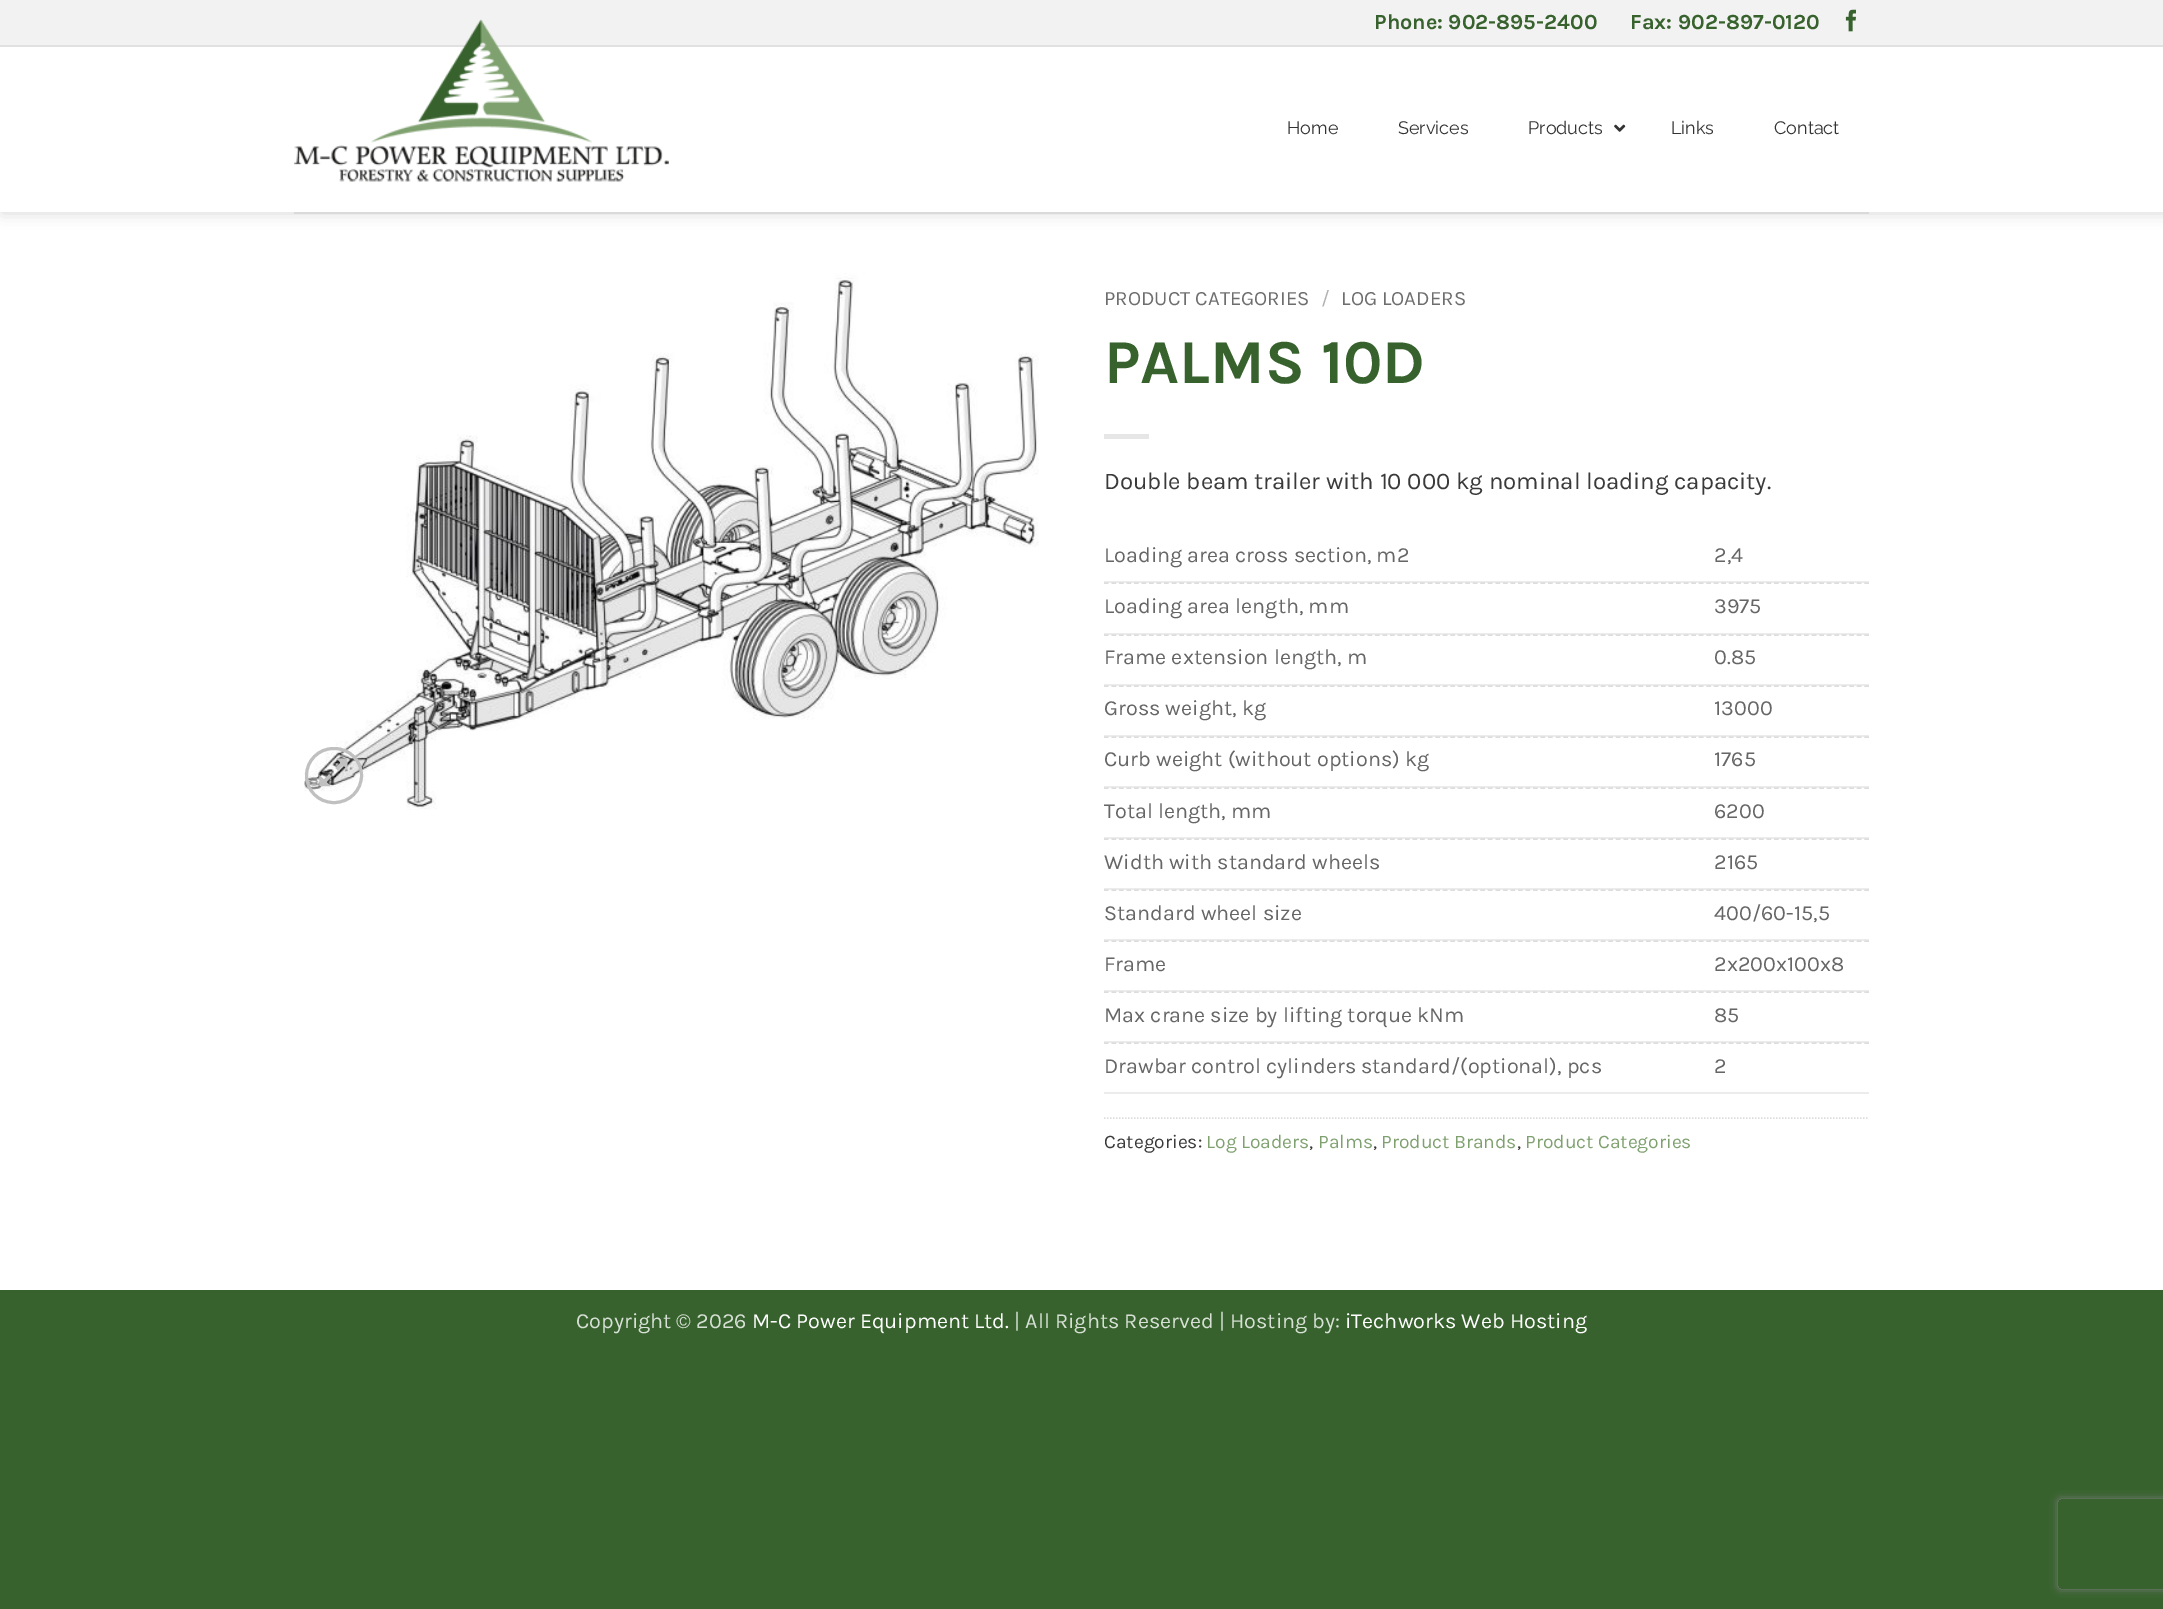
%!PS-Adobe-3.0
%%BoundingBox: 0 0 2163 1609
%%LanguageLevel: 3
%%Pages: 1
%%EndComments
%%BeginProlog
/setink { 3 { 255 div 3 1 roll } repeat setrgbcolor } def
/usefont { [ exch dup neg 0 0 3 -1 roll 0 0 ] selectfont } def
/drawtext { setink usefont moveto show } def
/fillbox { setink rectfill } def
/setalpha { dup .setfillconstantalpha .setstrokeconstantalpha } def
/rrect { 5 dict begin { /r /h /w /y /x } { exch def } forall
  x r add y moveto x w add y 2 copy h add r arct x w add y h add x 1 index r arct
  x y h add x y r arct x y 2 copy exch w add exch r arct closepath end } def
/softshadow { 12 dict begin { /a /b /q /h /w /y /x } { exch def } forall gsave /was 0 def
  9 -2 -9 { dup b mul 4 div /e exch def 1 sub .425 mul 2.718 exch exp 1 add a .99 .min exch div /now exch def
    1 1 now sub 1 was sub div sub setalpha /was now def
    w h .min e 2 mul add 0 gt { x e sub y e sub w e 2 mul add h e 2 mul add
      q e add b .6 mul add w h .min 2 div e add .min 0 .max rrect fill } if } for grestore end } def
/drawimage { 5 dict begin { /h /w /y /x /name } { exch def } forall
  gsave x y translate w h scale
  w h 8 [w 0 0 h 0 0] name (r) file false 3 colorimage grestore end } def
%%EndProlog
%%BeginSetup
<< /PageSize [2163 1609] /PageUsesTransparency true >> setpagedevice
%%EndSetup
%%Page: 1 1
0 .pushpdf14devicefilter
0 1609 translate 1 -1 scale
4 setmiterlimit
0 0 2163 1609 55 98 45 fillbox
0 47 2163 1243 255 255 255 fillbox
gsave
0 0 moveto 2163 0 lineto 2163 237 lineto 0 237 lineto closepath 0 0 moveto 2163 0 lineto 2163 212 lineto 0 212 lineto closepath eoclip newpath
0 0 0 setink
2 2 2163 211 0 7.5 0.15 softshadow
grestore
0 0 2163 45 242 242 242 fillbox
0 45 2163 2 225 225 225 fillbox
(Phone: 902-895-2400) 1374 29 /Karla-Bold 21.6 55 98 45 drawtext
(Fax: 902-897-0120) 1630 29 /Karla-Bold 21.6 55 98 45 drawtext
(assets/img1.rgb) 1845 9 11 23 drawimage
(assets/img2.rgb) 294 19 375 163 drawimage
(Home) 1287 134 /Raleway-Regular 18 51 51 51 drawtext
(Services) 1398 134 /Raleway-Regular 18 51 51 51 drawtext
(Products) 1528 134 /Raleway-Regular 18 51 51 51 drawtext
(assets/img3.rgb) 1614 124 12 8 drawimage
(Links) 1671 134 /Raleway-Regular 18 51 51 51 drawtext
(Contact) 1774 134 /Raleway-Regular 18 51 51 51 drawtext
294 212 1575 2 218 218 218 fillbox
0.9 setalpha
0 211 2163 1 255 255 255 fillbox
1 setalpha
(assets/img4.rgb) 304 273 735 537 drawimage
192 192 192 setink
3 setlinewidth
306.5 748.5 55 54 27 rrect stroke
(assets/img5.rgb) 319 758 29 29 drawimage
(PRODUCT CATEGORIES) 1104 305 /Karla-Regular 20.4 110 110 110 drawtext
(/) 1321 305 /Karla-Regular 20.4 178 178 178 drawtext
(LOG LOADERS) 1341 305 /Karla-Regular 20.4 110 110 110 drawtext
(PALMS 10D) 1104 383 /Karla-Bold 62.5 55 98 45 drawtext
1104 434 45 5 230 230 230 fillbox
(Double beam trailer with 10 000 kg nominal loading capacity.) 1104 489 /Karla-Regular 24 58 58 58 drawtext
1104 581 765 2 236 236 236 fillbox
(Loading area cross section, m2) 1104 562 /Karla-Regular 21.6 102 102 102 drawtext
(2,4) 1714 562 /Karla-Regular 21.6 102 102 102 drawtext
221 221 221 setink
1.5 setlinewidth
[4.5 3.03] 0 setdash
1104 583 moveto 1869 583 lineto stroke
1104 633 765 2 236 236 236 fillbox
(Loading area length, mm) 1104 613 /Karla-Regular 21.6 102 102 102 drawtext
(3975) 1714 613 /Karla-Regular 21.6 102 102 102 drawtext
221 221 221 setink
1104 635 moveto 1869 635 lineto stroke
1104 684 765 2 236 236 236 fillbox
(Frame extension length, m) 1104 664 /Karla-Regular 21.6 102 102 102 drawtext
(0.85) 1714 664 /Karla-Regular 21.6 102 102 102 drawtext
221 221 221 setink
1104 686 moveto 1869 686 lineto stroke
1104 735 765 2 236 236 236 fillbox
(Gross weight, kg) 1104 715 /Karla-Regular 21.6 102 102 102 drawtext
(13000) 1714 715 /Karla-Regular 21.6 102 102 102 drawtext
221 221 221 setink
1104 737 moveto 1869 737 lineto stroke
1104 786 765 2 236 236 236 fillbox
(Curb weight \(without options\) kg) 1104 766 /Karla-Regular 21.6 102 102 102 drawtext
(1765) 1714 766 /Karla-Regular 21.6 102 102 102 drawtext
221 221 221 setink
1104 788 moveto 1869 788 lineto stroke
1104 837 765 2 236 236 236 fillbox
(Total length, mm) 1104 818 /Karla-Regular 21.6 102 102 102 drawtext
(6200) 1714 818 /Karla-Regular 21.6 102 102 102 drawtext
221 221 221 setink
1104 839 moveto 1869 839 lineto stroke
1104 888 765 2 236 236 236 fillbox
(Width with standard wheels) 1104 869 /Karla-Regular 21.6 102 102 102 drawtext
(2165) 1714 869 /Karla-Regular 21.6 102 102 102 drawtext
221 221 221 setink
1104 890 moveto 1869 890 lineto stroke
1104 939 765 2 236 236 236 fillbox
(Standard wheel size) 1104 920 /Karla-Regular 21.6 102 102 102 drawtext
(400/60-15,5) 1714 920 /Karla-Regular 21.6 102 102 102 drawtext
221 221 221 setink
1104 941 moveto 1869 941 lineto stroke
1104 990 765 2 236 236 236 fillbox
(Frame) 1104 971 /Karla-Regular 21.6 102 102 102 drawtext
(2x200x100x8) 1714 971 /Karla-Regular 21.6 102 102 102 drawtext
221 221 221 setink
1104 992 moveto 1869 992 lineto stroke
1104 1041 765 2 236 236 236 fillbox
(Max crane size by lifting torque kNm) 1104 1022 /Karla-Regular 21.6 102 102 102 drawtext
(85) 1714 1022 /Karla-Regular 21.6 102 102 102 drawtext
221 221 221 setink
1104 1043 moveto 1869 1043 lineto stroke
1104 1092 765 2 236 236 236 fillbox
(Drawbar control cylinders standard/\(optional\), pcs) 1104 1073 /Karla-Regular 21.6 102 102 102 drawtext
(2) 1714 1073 /Karla-Regular 21.6 102 102 102 drawtext
221 221 221 setink
[1.5 1.5] 0 setdash
1104 1118 moveto 1869 1118 lineto stroke
(Categories:) 1104 1148 /Karla-Regular 19.25 58 58 58 drawtext
(Log Loaders) 1206 1148 /Karla-Regular 19.25 127 161 111 drawtext
(,) 1309 1148 /Karla-Regular 19.25 58 58 58 drawtext
(Palms) 1318 1148 /Karla-Regular 19.25 127 161 111 drawtext
(,) 1373 1148 /Karla-Regular 19.25 58 58 58 drawtext
(Product Brands) 1381 1148 /Karla-Regular 19.25 127 161 111 drawtext
(,) 1517 1148 /Karla-Regular 19.25 58 58 58 drawtext
(Product Categories) 1525 1148 /Karla-Regular 19.25 127 161 111 drawtext
(Copyright © 2026) 576 1328 /Karla-Regular 21.6 215 224 213 drawtext
(M-C Power Equipment Ltd.) 752 1328 /Karla-Regular 21.6 255 255 255 drawtext
(| All Rights Reserved | Hosting by:) 1014 1328 /Karla-Regular 21.6 215 224 213 drawtext
(iTechworks Web Hosting) 1345 1328 /Karla-Regular 21.6 255 255 255 drawtext
gsave
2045 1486 moveto 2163 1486 lineto 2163 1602 lineto 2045 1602 lineto closepath 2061 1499 moveto 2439 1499 lineto 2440.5 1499 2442 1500.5 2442 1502 curveto 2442 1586 lineto 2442 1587.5 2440.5 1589 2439 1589 curveto 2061 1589 lineto 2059.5 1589 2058 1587.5 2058 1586 curveto 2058 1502 lineto 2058 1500.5 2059.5 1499 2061 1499 curveto closepath eoclip newpath
128 128 128 setink
2058 1499 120 90 3 4 1 softshadow
grestore
.poppdf14devicefilter showpage
%%EOF
